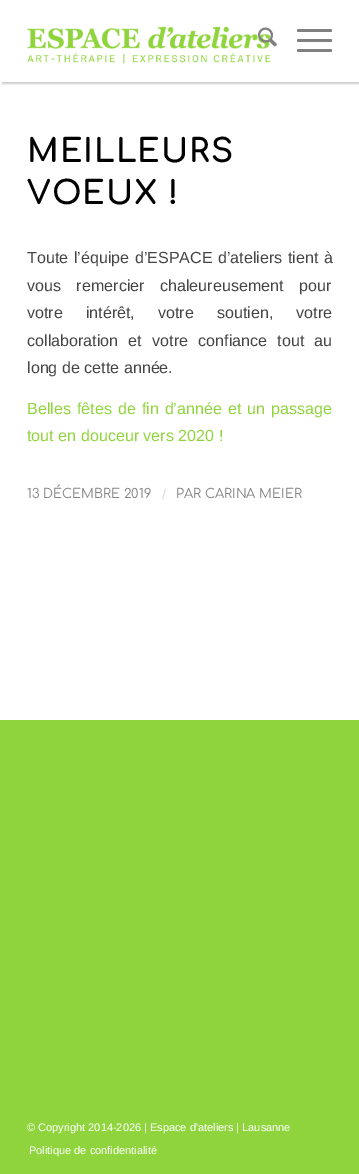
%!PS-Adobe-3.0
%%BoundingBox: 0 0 359 1174
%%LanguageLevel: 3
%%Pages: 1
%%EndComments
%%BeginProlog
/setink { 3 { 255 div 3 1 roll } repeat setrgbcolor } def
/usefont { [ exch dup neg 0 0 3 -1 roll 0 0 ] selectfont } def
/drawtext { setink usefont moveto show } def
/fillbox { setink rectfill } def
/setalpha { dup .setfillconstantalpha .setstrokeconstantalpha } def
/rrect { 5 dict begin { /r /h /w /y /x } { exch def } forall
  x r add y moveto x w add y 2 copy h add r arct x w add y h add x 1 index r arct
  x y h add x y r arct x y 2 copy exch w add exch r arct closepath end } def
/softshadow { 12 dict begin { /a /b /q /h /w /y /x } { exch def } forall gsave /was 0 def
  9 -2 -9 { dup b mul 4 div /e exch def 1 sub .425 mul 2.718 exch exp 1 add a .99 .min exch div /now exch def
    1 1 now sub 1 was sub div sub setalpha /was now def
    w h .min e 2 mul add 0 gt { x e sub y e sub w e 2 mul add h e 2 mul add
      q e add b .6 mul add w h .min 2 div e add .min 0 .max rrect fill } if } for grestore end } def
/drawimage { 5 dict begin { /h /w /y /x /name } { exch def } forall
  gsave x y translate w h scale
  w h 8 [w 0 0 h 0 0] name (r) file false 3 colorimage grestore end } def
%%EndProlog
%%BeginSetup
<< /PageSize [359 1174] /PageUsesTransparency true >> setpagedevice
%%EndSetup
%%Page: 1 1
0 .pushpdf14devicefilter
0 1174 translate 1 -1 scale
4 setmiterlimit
0 0 359 1174 144 212 61 fillbox
0 0 359 720 255 255 255 fillbox
gsave
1 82 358 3 rectclip
0 0 0 setink
2 2 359 82 0 1 0.2 softshadow
grestore
(assets/img1.rgb) 27 26 244 38 drawimage
(assets/img2.rgb) 258 27 19 20 drawimage
128 128 128 setink
297 39 35 3 1.5 rrect fill
297 29 35 3 1.5 rrect fill
297 49 35 3 1.5 rrect fill
/Comfortaa-Bold 32.25 usefont
1 1 1 setink
27 162 moveto 1 0 (MEILLEURS) ashow
27 204 moveto 1 0 (VOEUX !) ashow
/LiberationSans-Regular 16.1 usefont
69 69 69 setink
27 263 moveto 1 0 32 (Toute l’équipe d’ESPACE d’ateliers tient à) widthshow
27 291 moveto 11 0 32 (vous remercier chaleureusement pour) widthshow
27 318 moveto 18.5 0 32 (votre intérêt, votre soutien, votre) widthshow
27 346 moveto 5.75 0 32 (collaboration et votre confiance tout au) widthshow
(long de cette année.) 27 373 /LiberationSans-Regular 16.1 69 69 69 drawtext
144 212 61 setink
27 414 moveto 1.5 0 32 (Belles fêtes de fin d’année et un passage) widthshow
(tout en douceur vers 2020 !) 27 441 /LiberationSans-Regular 16.1 144 212 61 drawtext
(13 DÉCEMBRE 2019) 27 498 /Comfortaa-Regular 13 128 128 128 drawtext
(/) 162 499 /LiberationSans-Regular 14 217 217 217 drawtext
(PAR CARINA MEIER) 176 498 /Comfortaa-Regular 13 128 128 128 drawtext
(© Copyright 2014-2026 | Espace d'ateliers | Lausanne) 27 1131 /LiberationSans-Regular 11 255 255 255 drawtext
(Politique de confidentialité) 29 1154 /LiberationSans-Regular 11 255 255 255 drawtext
.poppdf14devicefilter showpage
%%EOF
